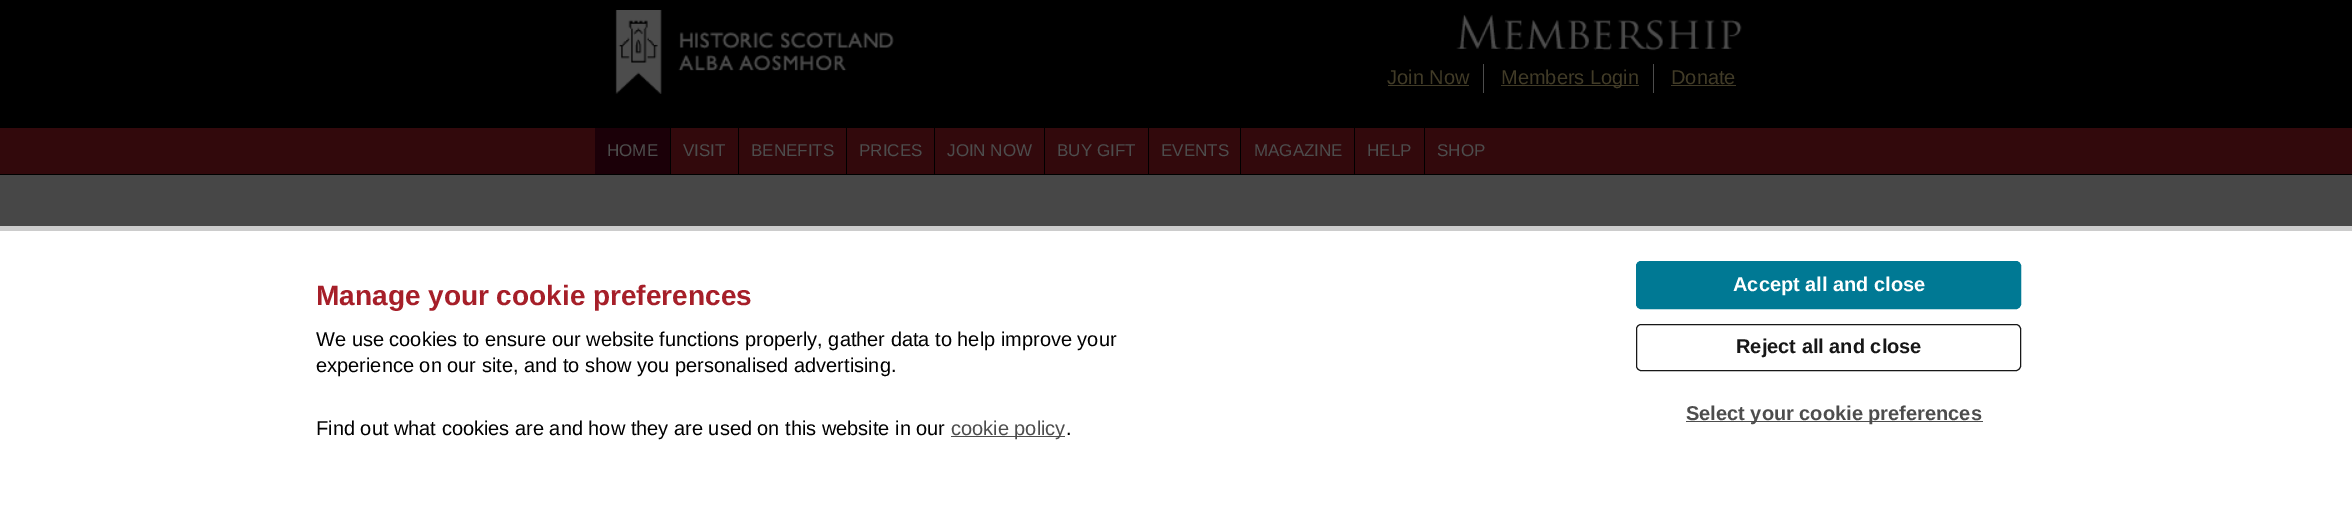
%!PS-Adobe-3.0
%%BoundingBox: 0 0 2352 508
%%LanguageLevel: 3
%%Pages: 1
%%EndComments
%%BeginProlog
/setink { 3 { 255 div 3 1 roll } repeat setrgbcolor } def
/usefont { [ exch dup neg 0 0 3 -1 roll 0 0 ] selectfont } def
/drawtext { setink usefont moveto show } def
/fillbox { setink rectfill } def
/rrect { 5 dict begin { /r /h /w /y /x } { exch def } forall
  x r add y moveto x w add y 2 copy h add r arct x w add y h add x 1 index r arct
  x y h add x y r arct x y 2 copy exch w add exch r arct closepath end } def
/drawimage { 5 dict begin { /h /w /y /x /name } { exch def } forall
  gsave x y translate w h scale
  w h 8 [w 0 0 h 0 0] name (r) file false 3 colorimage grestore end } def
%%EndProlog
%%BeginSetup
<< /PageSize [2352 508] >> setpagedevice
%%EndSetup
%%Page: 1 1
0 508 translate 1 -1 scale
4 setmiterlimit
0 0 2352 508 71 71 71 fillbox
0 0 2352 128 0 0 0 fillbox
(assets/img1.rgb) 615 10 279 84 drawimage
(assets/img2.rgb) 1456 14 286 37 drawimage
1483 64 1 29 77 77 77 fillbox
(Join Now) 1387 84 /LiberationSans-Regular 20 65 59 39 drawtext
1388 85 81 1 65 59 39 fillbox
1653 64 1 29 77 77 77 fillbox
1501 85 138 1 65 59 39 fillbox
(Members Login) 1501 84 /LiberationSans-Regular 20 65 59 39 drawtext
(Donate) 1671 84 /LiberationSans-Regular 20 65 59 39 drawtext
1671 85 65 1 65 59 39 fillbox
0 128 2352 46 50 9 12 fillbox
0 174 2352 1 0 0 0 fillbox
595 128 75 46 27 0 8 fillbox
(HOME) 607 156 /LiberationSans-Regular 17 77 77 77 drawtext
670 128 1 46 0 0 0 fillbox
(VISIT) 683 156 /LiberationSans-Regular 17 77 77 77 drawtext
738 128 1 46 0 0 0 fillbox
(BENEFITS) 751 156 /LiberationSans-Regular 17 77 77 77 drawtext
846 128 1 46 0 0 0 fillbox
(PRICES) 859 156 /LiberationSans-Regular 17 77 77 77 drawtext
934 128 1 46 0 0 0 fillbox
(JOIN NOW) 947 156 /LiberationSans-Regular 17 77 77 77 drawtext
1044 128 1 46 0 0 0 fillbox
(BUY GIFT) 1057 156 /LiberationSans-Regular 17 77 77 77 drawtext
1148 128 1 46 0 0 0 fillbox
(EVENTS) 1161 156 /LiberationSans-Regular 17 77 77 77 drawtext
1240 128 1 46 0 0 0 fillbox
(MAGAZINE) 1254 156 /LiberationSans-Regular 17 77 77 77 drawtext
1354 128 1 46 0 0 0 fillbox
(HELP) 1367 156 /LiberationSans-Regular 17 77 77 77 drawtext
1424 128 1 46 0 0 0 fillbox
(SHOP) 1437 156 /LiberationSans-Regular 17 77 77 77 drawtext
0 231 2352 277 255 255 255 fillbox
0 226 2352 5 204 204 204 fillbox
(Manage your cookie preferences) 316 305 /LiberationSans-Bold 28 166 31 41 drawtext
(We use cookies to ensure our website functions properly, gather data to help improve your) 316 346 /LiberationSans-Regular 20 0 0 0 drawtext
(experience on our site, and to show you personalised advertising.) 316 372 /LiberationSans-Regular 20 0 0 0 drawtext
(Find out what cookies are and how they are used on this website in our) 316 435 /LiberationSans-Regular 20 0 0 0 drawtext
951 436 114 1 77 77 77 fillbox
(cookie policy) 951 435 /LiberationSans-Regular 20 77 77 77 drawtext
(.) 1066 435 /LiberationSans-Regular 20 0 0 0 drawtext
0 121 148 setink
1636.5 261.5 384 47 4.5 rrect gsave fill grestore
stroke
(Accept all and close) 1733 291 /LiberationSans-Bold 20 255 255 255 drawtext
23 23 23 setink
1636.5 324.5 384 46 4.5 rrect stroke
(Reject all and close) 1736 353 /LiberationSans-Bold 20 23 23 23 drawtext
1686 421 297 1 77 77 77 fillbox
(Select your cookie preferences) 1686 420 /LiberationSans-Bold 20 77 77 77 drawtext
showpage
%%EOF
